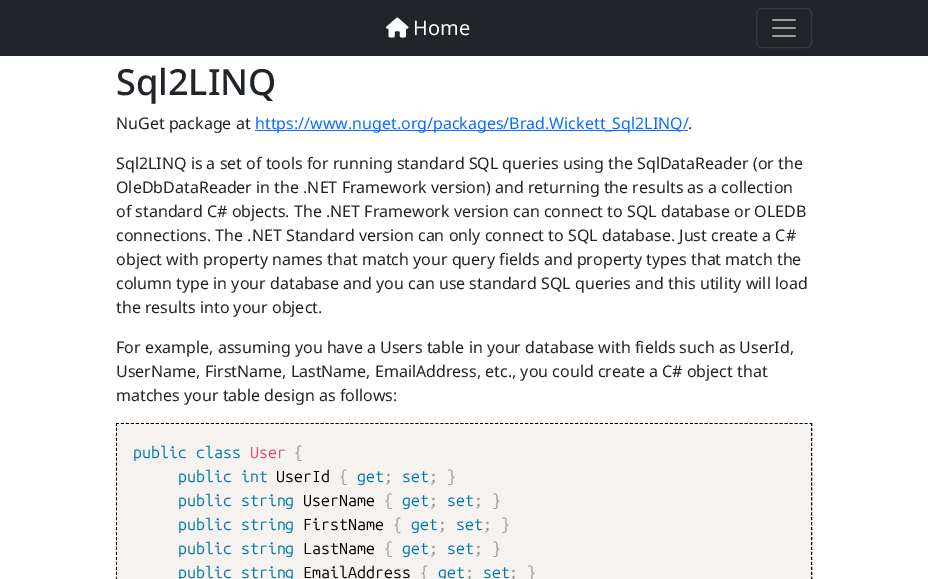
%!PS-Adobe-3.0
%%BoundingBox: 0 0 928 579
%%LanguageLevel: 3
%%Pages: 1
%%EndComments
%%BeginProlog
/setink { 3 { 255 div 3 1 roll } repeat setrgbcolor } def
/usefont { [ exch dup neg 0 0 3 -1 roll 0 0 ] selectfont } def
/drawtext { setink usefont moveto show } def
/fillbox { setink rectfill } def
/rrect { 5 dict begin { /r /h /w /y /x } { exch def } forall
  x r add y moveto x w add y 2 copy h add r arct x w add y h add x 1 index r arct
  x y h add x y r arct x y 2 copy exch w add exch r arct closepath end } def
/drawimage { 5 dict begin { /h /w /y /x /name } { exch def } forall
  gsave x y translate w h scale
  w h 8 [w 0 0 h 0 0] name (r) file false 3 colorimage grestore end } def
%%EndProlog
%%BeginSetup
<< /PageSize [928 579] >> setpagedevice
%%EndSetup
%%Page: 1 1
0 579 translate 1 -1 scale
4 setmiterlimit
0 0 928 579 255 255 255 fillbox
0 0 928 56 33 37 41 fillbox
(assets/img1.rgb) 386 17 23 21 drawimage
(Home) 413 35 /NotoSans-Regular 20 255 255 255 drawtext
55 59 62 setink
756.5 8.5 55 39 5.5 rrect stroke
(assets/img2.rgb) 772 19 24 18 drawimage
(Sql2LINQ) 116 95 /NotoSans-Medium 36 33 37 41 drawtext
(NuGet package at) 116 129 /NotoSans-Regular 16 33 37 41 drawtext
255 130 433 1 13 110 253 fillbox
(https://www.nuget.org/packages/Brad.Wickett_Sql2LINQ/) 255 129 /NotoSans-Regular 16 13 110 253 drawtext
(.) 688 129 /NotoSans-Regular 16 33 37 41 drawtext
(Sql2LINQ is a set of tools for running standard SQL queries using the SqlDataReader \(or the) 116 169 /NotoSans-Regular 16 33 37 41 drawtext
(OleDbDataReader in the .NET Framework version\) and returning the results as a collection) 116 193 /NotoSans-Regular 16 33 37 41 drawtext
(of standard C# objects. The .NET Framework version can connect to SQL database or OLEDB) 116 217 /NotoSans-Regular 16 33 37 41 drawtext
(connections. The .NET Standard version can only connect to SQL database. Just create a C#) 116 241 /NotoSans-Regular 16 33 37 41 drawtext
(object with property names that match your query fields and property types that match the) 116 265 /NotoSans-Regular 16 33 37 41 drawtext
(column type in your database and you can use standard SQL queries and this utility will load) 116 289 /NotoSans-Regular 16 33 37 41 drawtext
(the results into your object.) 116 313 /NotoSans-Regular 16 33 37 41 drawtext
(For example, assuming you have a Users table in your database with fields such as UserId,) 116 353 /NotoSans-Regular 16 33 37 41 drawtext
(UserName, FirstName, LastName, EmailAddress, etc., you could create a C# object that) 116 377 /NotoSans-Regular 16 33 37 41 drawtext
(matches your table design as follows:) 116 401 /NotoSans-Regular 16 33 37 41 drawtext
0 0 0 setink
[3 1.99] 0 setdash
116 423.5 moveto 812 423.5 lineto stroke
[3 1.96] 0 setdash
811.5 423 moveto 811.5 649 lineto stroke
116.5 423 moveto 116.5 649 lineto stroke
117 424 694 155 245 242 240 fillbox
(public class) 133 458 /UbuntuMono-Regular 16 0 119 170 drawtext
(User) 250 458 /UbuntuMono-Regular 16 221 74 104 drawtext
({) 294 458 /UbuntuMono-Regular 16 153 153 153 drawtext
(public int) 178 482 /UbuntuMono-Regular 16 0 119 170 drawtext
(UserId) 276 482 /UbuntuMono-Regular 16 0 0 0 drawtext
({) 339 482 /UbuntuMono-Regular 16 153 153 153 drawtext
(get) 357 482 /UbuntuMono-Regular 16 0 119 170 drawtext
(;) 384 482 /UbuntuMono-Regular 16 153 153 153 drawtext
(set) 402 482 /UbuntuMono-Regular 16 0 119 170 drawtext
(; }) 429 482 /UbuntuMono-Regular 16 153 153 153 drawtext
(public string) 178 506 /UbuntuMono-Regular 16 0 119 170 drawtext
(UserName) 303 506 /UbuntuMono-Regular 16 0 0 0 drawtext
({) 384 506 /UbuntuMono-Regular 16 153 153 153 drawtext
(get) 402 506 /UbuntuMono-Regular 16 0 119 170 drawtext
(;) 429 506 /UbuntuMono-Regular 16 153 153 153 drawtext
(set) 447 506 /UbuntuMono-Regular 16 0 119 170 drawtext
(; }) 474 506 /UbuntuMono-Regular 16 153 153 153 drawtext
(public string) 178 530 /UbuntuMono-Regular 16 0 119 170 drawtext
(FirstName) 303 530 /UbuntuMono-Regular 16 0 0 0 drawtext
({) 393 530 /UbuntuMono-Regular 16 153 153 153 drawtext
(get) 411 530 /UbuntuMono-Regular 16 0 119 170 drawtext
(;) 438 530 /UbuntuMono-Regular 16 153 153 153 drawtext
(set) 456 530 /UbuntuMono-Regular 16 0 119 170 drawtext
(; }) 483 530 /UbuntuMono-Regular 16 153 153 153 drawtext
(public string) 178 554 /UbuntuMono-Regular 16 0 119 170 drawtext
(LastName) 303 554 /UbuntuMono-Regular 16 0 0 0 drawtext
({) 384 554 /UbuntuMono-Regular 16 153 153 153 drawtext
(get) 402 554 /UbuntuMono-Regular 16 0 119 170 drawtext
(;) 429 554 /UbuntuMono-Regular 16 153 153 153 drawtext
(set) 447 554 /UbuntuMono-Regular 16 0 119 170 drawtext
(; }) 474 554 /UbuntuMono-Regular 16 153 153 153 drawtext
(public string) 178 578 /UbuntuMono-Regular 16 0 119 170 drawtext
(EmailAddress) 303 578 /UbuntuMono-Regular 16 0 0 0 drawtext
({) 420 578 /UbuntuMono-Regular 16 153 153 153 drawtext
(get) 438 578 /UbuntuMono-Regular 16 0 119 170 drawtext
(;) 465 578 /UbuntuMono-Regular 16 153 153 153 drawtext
(set) 483 578 /UbuntuMono-Regular 16 0 119 170 drawtext
(; }) 509 578 /UbuntuMono-Regular 16 153 153 153 drawtext
showpage
%%EOF
